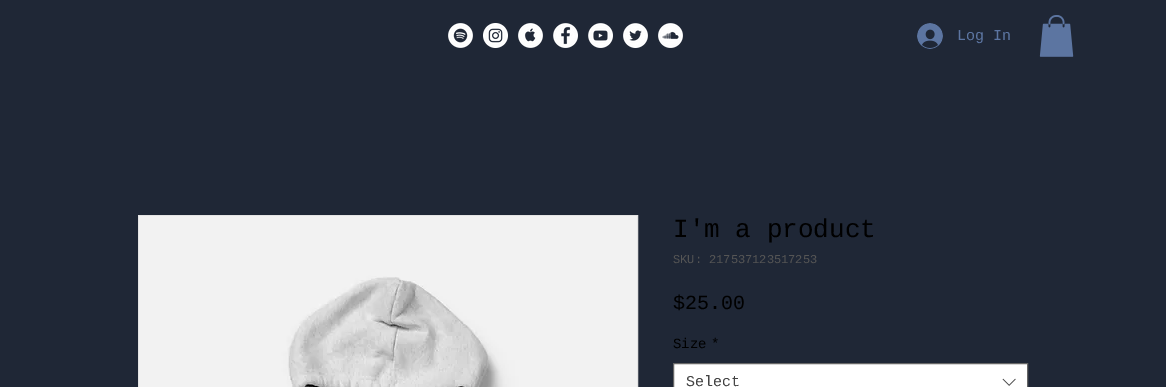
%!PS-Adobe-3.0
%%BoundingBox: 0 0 1166 387
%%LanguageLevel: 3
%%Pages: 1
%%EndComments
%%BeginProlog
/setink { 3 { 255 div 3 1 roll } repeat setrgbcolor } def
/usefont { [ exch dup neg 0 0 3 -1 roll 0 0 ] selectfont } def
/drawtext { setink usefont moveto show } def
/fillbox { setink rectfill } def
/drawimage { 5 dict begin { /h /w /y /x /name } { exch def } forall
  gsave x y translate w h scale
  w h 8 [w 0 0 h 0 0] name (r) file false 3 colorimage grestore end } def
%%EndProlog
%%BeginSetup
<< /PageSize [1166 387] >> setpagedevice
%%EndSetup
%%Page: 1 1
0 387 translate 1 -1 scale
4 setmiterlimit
0 0 1166 387 31 39 54 fillbox
(assets/img1.rgb) 448 23 25 25 drawimage
(assets/img2.rgb) 483 23 25 25 drawimage
(assets/img3.rgb) 518 23 25 25 drawimage
(assets/img4.rgb) 553 23 25 25 drawimage
(assets/img5.rgb) 588 23 25 25 drawimage
(assets/img6.rgb) 623 23 25 25 drawimage
(assets/img7.rgb) 658 23 25 25 drawimage
(assets/img8.rgb) 917 23 26 26 drawimage
(Log In) 957 40 /LiberationMono-Regular 15 92 117 161 drawtext
(assets/img9.rgb) 1039 15 35 42 drawimage
228 228 228 setink
138.5 215.5 499 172 rectstroke
(assets/img10.rgb) 139 216 498 171 drawimage
(I'm a product) 673 237 /LiberationMono-Regular 26 0 0 0 drawtext
(SKU: 217537123517253) 673 263 /LiberationMono-Regular 12 85 85 85 drawtext
($25.00) 673 309 /LiberationMono-Regular 20 0 0 0 drawtext
(Size) 673 348 /LiberationMono-Regular 14 0 0 0 drawtext
(*) 711 348 /LiberationMono-Regular 14 0 0 0 drawtext
255 255 255 setink
673.5 363.5 moveto 1027.5 363.5 lineto 1027.5 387.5 lineto 673.5 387.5 lineto closepath gsave fill grestore
102 102 102 setink
stroke
(Select) 686 386 /LiberationMono-Regular 15 68 68 68 drawtext
(assets/img11.rgb) 1002 378 14 8 drawimage
showpage
%%EOF
